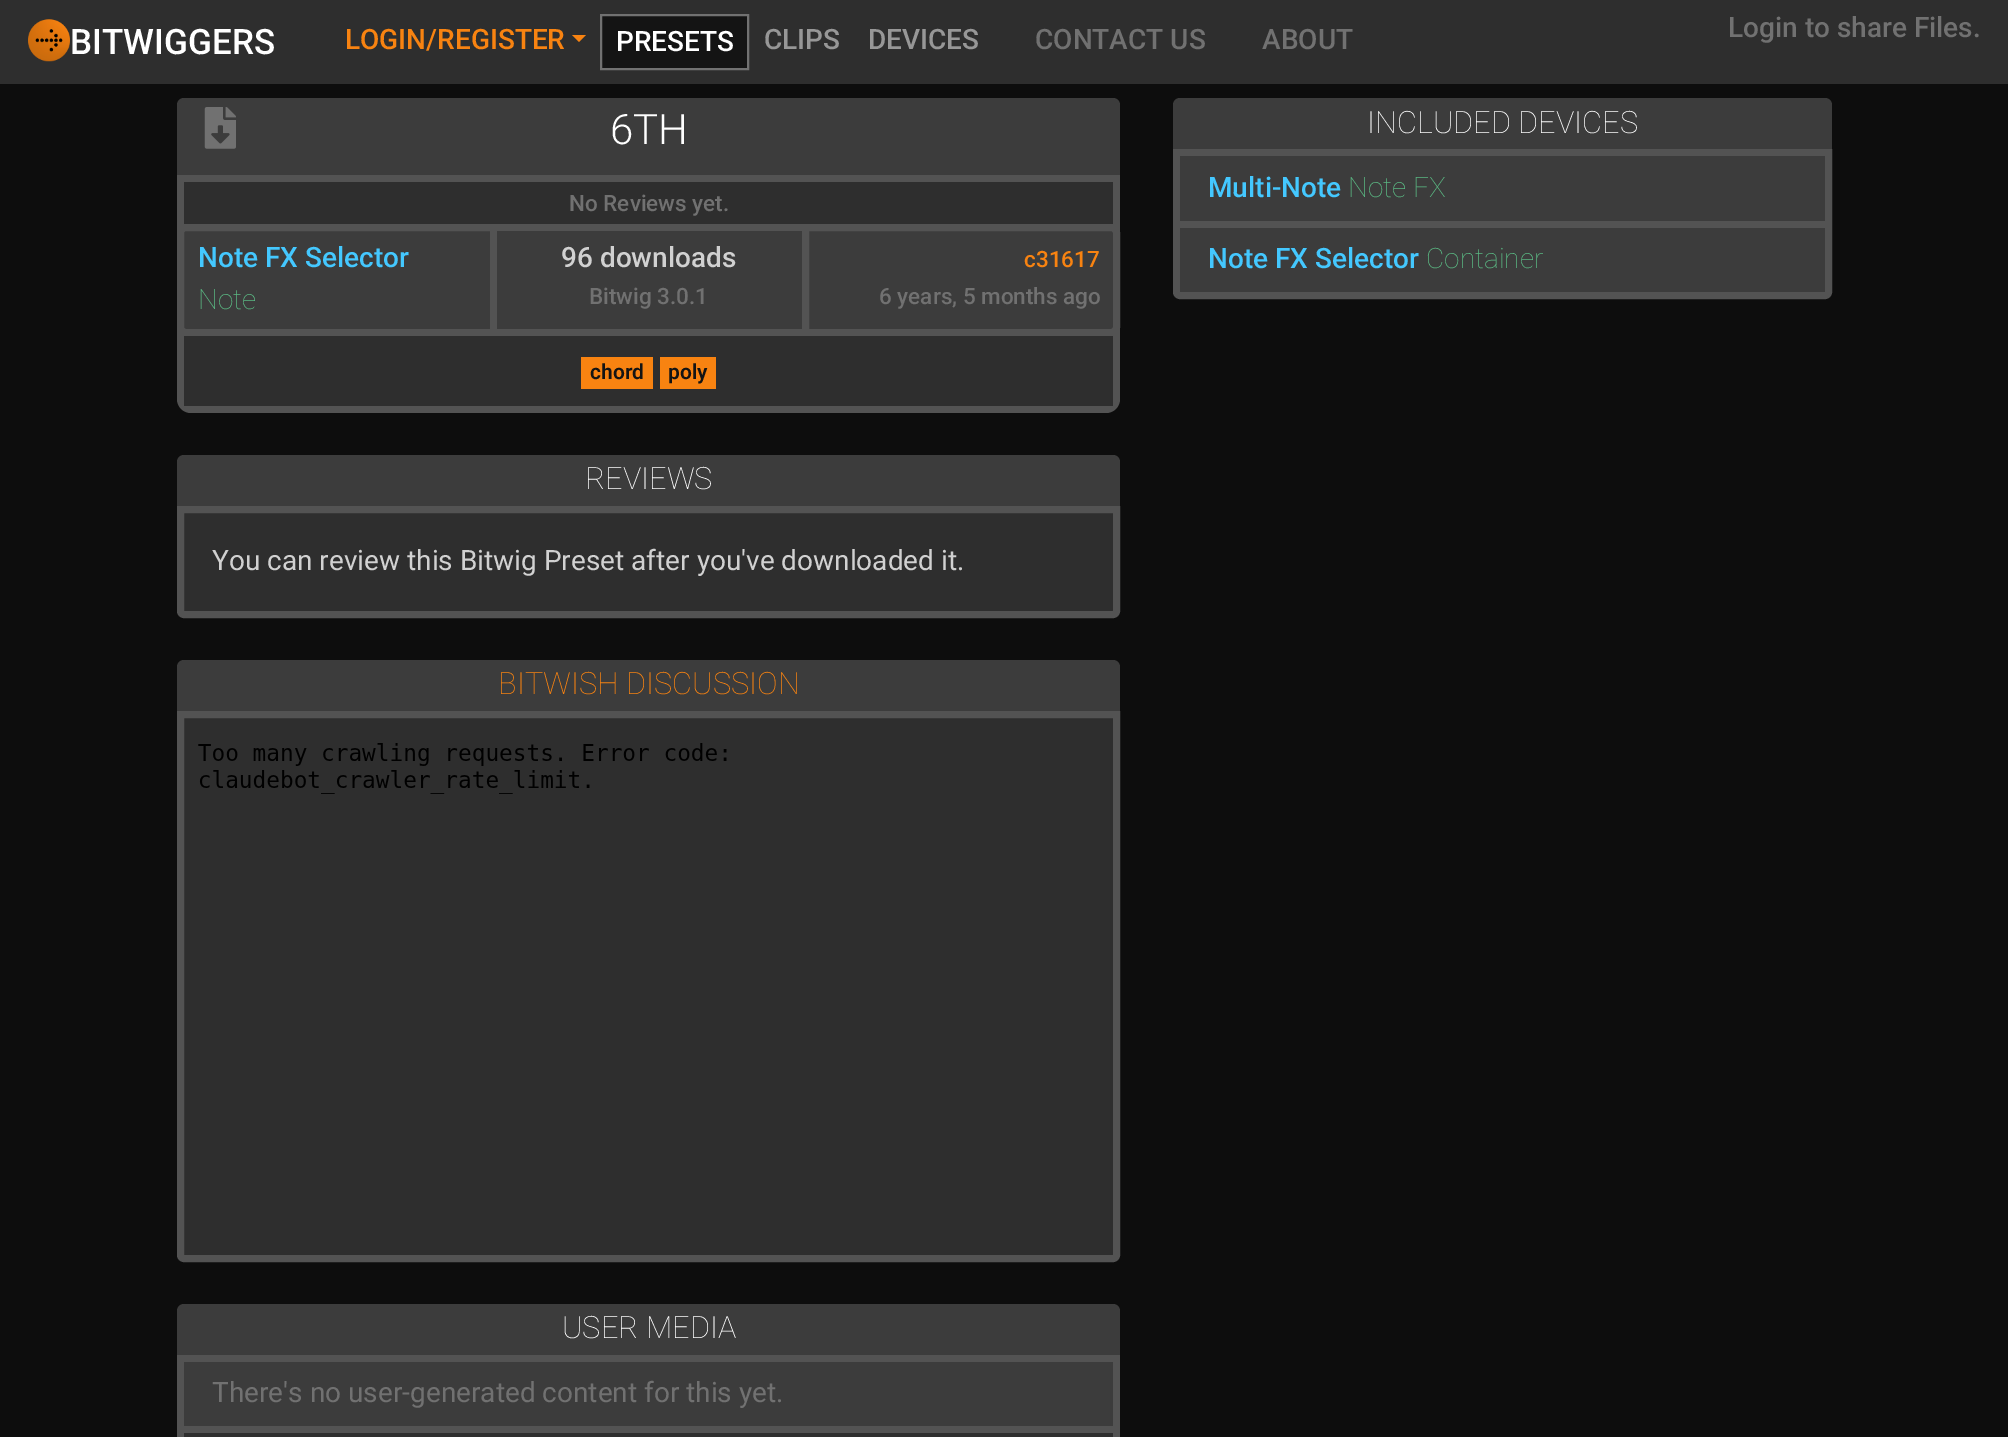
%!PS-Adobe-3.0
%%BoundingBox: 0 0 2008 1437
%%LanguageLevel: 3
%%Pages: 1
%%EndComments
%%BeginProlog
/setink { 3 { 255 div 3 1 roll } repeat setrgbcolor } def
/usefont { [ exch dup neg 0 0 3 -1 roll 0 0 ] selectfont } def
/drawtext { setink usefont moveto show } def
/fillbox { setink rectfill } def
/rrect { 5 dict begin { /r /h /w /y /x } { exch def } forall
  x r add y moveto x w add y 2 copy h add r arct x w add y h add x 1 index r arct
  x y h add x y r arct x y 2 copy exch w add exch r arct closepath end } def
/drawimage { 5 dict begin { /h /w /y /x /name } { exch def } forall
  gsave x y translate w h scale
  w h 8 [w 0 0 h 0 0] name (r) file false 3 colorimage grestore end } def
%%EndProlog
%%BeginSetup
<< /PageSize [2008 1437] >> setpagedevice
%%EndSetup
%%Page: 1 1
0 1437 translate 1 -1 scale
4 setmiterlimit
0 0 2008 1437 13 13 13 fillbox
0 0 2008 84 46 46 46 fillbox
(assets/img1.rgb) 28 19 42 43 drawimage
(BITWIGGERS) 70 54 /Roboto-Medium 35 255 255 255 drawtext
(LOGIN/REGISTER) 345 49 /Roboto-Medium 28 248 131 17 drawtext
572 35 moveto 586 35 lineto 579 42 lineto closepath fill
20 20 20 setink
601 15 moveto 748 15 lineto 748 69 lineto 601 69 lineto closepath gsave fill grestore
113 113 113 setink
2 setlinewidth
stroke
(PRESETS) 616 51 /Roboto-Medium 28 255 255 255 drawtext
(CLIPS) 764 49 /Roboto-Medium 28 151 151 151 drawtext
(DEVICES) 868 49 /Roboto-Medium 28 151 151 151 drawtext
(CONTACT US) 1035 49 /Roboto-Medium 28 113 113 113 drawtext
(ABOUT) 1262 49 /Roboto-Medium 28 113 113 113 drawtext
(Login to share Files.) 1728 37 /Roboto-Medium 28 113 113 113 drawtext
83 83 83 setink
177 98 943 315 14 rrect fill
60 60 60 setink
184 98 moveto 1113 98 lineto 1117 98 1120 101 1120 105 curveto 1120 175 lineto 177 175 lineto 177 105 lineto 177 101 180 98 184 98 curveto closepath fill
(assets/img2.rgb) 204 107 32 42 drawimage
(6TH) 610 144 /Roboto-Light 42 255 255 255 drawtext
184 182 929 42 46 46 46 fillbox
(No Reviews yet.) 569 211 /Roboto-Medium 22.5 113 113 113 drawtext
60 60 60 setink
186 227.5 moveto 493.5 227.5 lineto 493.5 332.5 lineto 186 332.5 lineto 183 332.5 180.5 330 180.5 327 curveto 180.5 233 lineto 180.5 230 183 227.5 186 227.5 curveto closepath gsave fill grestore
83 83 83 setink
7 setlinewidth
stroke
(Note FX Selector) 198 267 /Roboto-Medium 28 68 200 255 drawtext
(Note) 198 309 /Roboto-Thin 28 91 186 132 drawtext
497 231 305 98 60 60 60 fillbox
(96 downloads) 561 267 /Roboto-Medium 28 209 209 209 drawtext
(Bitwig 3.0.1) 589 304 /Roboto-Medium 22.5 113 113 113 drawtext
60 60 60 setink
805.5 227.5 moveto 1111 227.5 lineto 1114 227.5 1116.5 230 1116.5 233 curveto 1116.5 327 lineto 1116.5 330 1114 332.5 1111 332.5 curveto 805.5 332.5 lineto closepath gsave fill grestore
83 83 83 setink
stroke
(c31617) 1024 267 /Roboto-Medium 22.5 248 131 17 drawtext
(6 years, 5 months ago) 879 304 /Roboto-Medium 22.5 113 113 113 drawtext
184 336 929 70 46 46 46 fillbox
581 357 72 32 248 131 17 fillbox
(chord) 590 379 /Roboto-SemiBold 21 20 20 20 drawtext
660 357 56 32 248 131 17 fillbox
(poly) 668 379 /Roboto-SemiBold 21 20 20 20 drawtext
60 60 60 setink
184 455 moveto 1113 455 lineto 1117 455 1120 458 1120 462 curveto 1120 506 lineto 177 506 lineto 177 462 lineto 177 458 180 455 184 455 curveto closepath fill
(REVIEWS) 585 489 /Roboto-Thin 30.75 255 255 255 drawtext
46 46 46 setink
180.5 509.5 moveto 1116.5 509.5 lineto 1116.5 611 lineto 1116.5 613 1115 614.5 1113 614.5 curveto 184 614.5 lineto 182 614.5 180.5 613 180.5 611 curveto closepath gsave fill grestore
83 83 83 setink
stroke
(You can review this Bitwig Preset after you've downloaded it.) 212 570 /Roboto-Regular 28 209 209 209 drawtext
60 60 60 setink
184 660 moveto 1113 660 lineto 1117 660 1120 663 1120 667 curveto 1120 711 lineto 177 711 lineto 177 667 lineto 177 663 180 660 184 660 curveto closepath fill
(BITWISH DISCUSSION) 498 694 /Roboto-Thin 30.75 248 131 17 drawtext
46 46 46 setink
180.5 714.5 moveto 1116.5 714.5 lineto 1116.5 1255 lineto 1116.5 1257 1115 1258.5 1113 1258.5 curveto 184 1258.5 lineto 182 1258.5 180.5 1257 180.5 1255 curveto closepath gsave fill grestore
83 83 83 setink
stroke
(assets/img3.rgb) 198 743 529 51 drawimage
177 1304 943 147 14 rrect fill
60 60 60 setink
184 1304 moveto 1113 1304 lineto 1117 1304 1120 1307 1120 1311 curveto 1120 1355 lineto 177 1355 lineto 177 1311 lineto 177 1307 180 1304 184 1304 curveto closepath fill
(USER MEDIA) 562 1338 /Roboto-Thin 30.75 255 255 255 drawtext
184 1362 929 64 60 60 60 fillbox
(There's no user-generated content for this yet.) 212 1402 /Roboto-Regular 28 113 113 113 drawtext
184 1433 929 4 46 46 46 fillbox
60 60 60 setink
1180 98 moveto 1825 98 lineto 1829 98 1832 101 1832 105 curveto 1832 149 lineto 1173 149 lineto 1173 105 lineto 1173 101 1176 98 1180 98 curveto closepath fill
(INCLUDED DEVICES) 1367 133 /Roboto-Thin 30.75 255 255 255 drawtext
83 83 83 setink
1176.5 152.5 moveto 1828.5 152.5 lineto 1828.5 292 lineto 1828.5 294 1827 295.5 1825 295.5 curveto 1180 295.5 lineto 1178 295.5 1176.5 294 1176.5 292 curveto closepath stroke
1180 156 645 65 60 60 60 fillbox
(Multi-Note) 1208 197 /Roboto-Medium 28 68 200 255 drawtext
(Note FX) 1348 197 /Roboto-Thin 28 91 186 132 drawtext
1180 228 645 64 60 60 60 fillbox
1180 221 645 7 83 83 83 fillbox
(Note FX Selector) 1208 268 /Roboto-Medium 28 68 200 255 drawtext
(Container) 1426 268 /Roboto-Thin 28 91 186 132 drawtext
showpage
%%EOF
